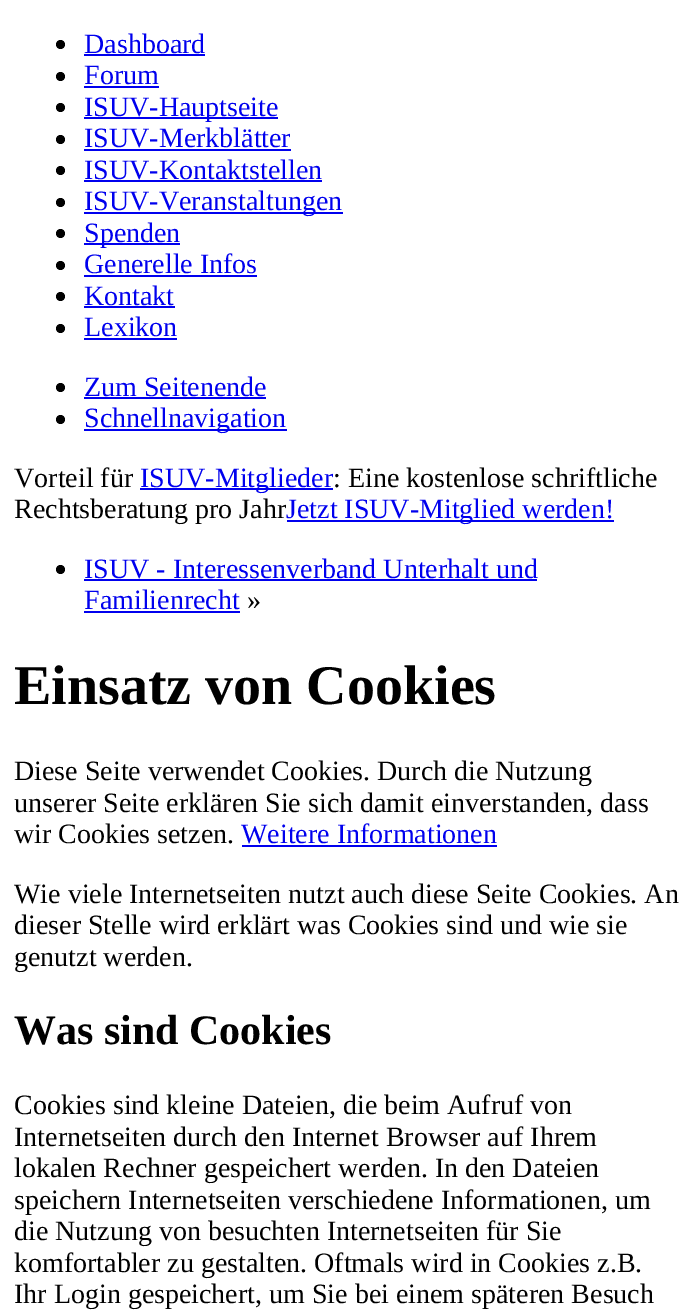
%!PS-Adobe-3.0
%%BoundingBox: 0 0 692 1312
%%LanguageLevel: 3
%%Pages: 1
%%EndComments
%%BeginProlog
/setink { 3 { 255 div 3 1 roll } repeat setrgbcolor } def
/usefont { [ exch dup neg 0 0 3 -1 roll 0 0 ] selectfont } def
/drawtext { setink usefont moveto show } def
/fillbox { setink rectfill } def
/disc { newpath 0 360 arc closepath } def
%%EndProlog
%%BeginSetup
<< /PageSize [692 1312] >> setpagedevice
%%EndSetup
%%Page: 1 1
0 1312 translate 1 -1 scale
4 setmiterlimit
0 0 692 1312 255 255 255 fillbox
0 0 0 setink
60.5 44.5 4.5 disc fill
(Dashboard) 84 53 /LiberationSerif-Regular 28 0 0 238 drawtext
84 54 121 2 0 0 238 fillbox
0 0 0 setink
60.5 76.5 4.5 disc fill
(Forum) 84 84 /LiberationSerif-Regular 28 0 0 238 drawtext
84 86 75 2 0 0 238 fillbox
0 0 0 setink
60.5 107.5 4.5 disc fill
84 117 194 2 0 0 238 fillbox
(ISUV-Hauptseite) 84 116 /LiberationSerif-Regular 28 0 0 238 drawtext
0 0 0 setink
60.5 139.5 4.5 disc fill
(ISUV-Merkblätter) 84 147 /LiberationSerif-Regular 28 0 0 238 drawtext
84 149 207 2 0 0 238 fillbox
0 0 0 setink
60.5 170.5 4.5 disc fill
(ISUV-Kontaktstellen) 84 179 /LiberationSerif-Regular 28 0 0 238 drawtext
84 180 238 2 0 0 238 fillbox
0 0 0 setink
60.5 202.5 4.5 disc fill
84 212 259 2 0 0 238 fillbox
(ISUV-Veranstaltungen) 84 210 /LiberationSerif-Regular 28 0 0 238 drawtext
0 0 0 setink
60.5 233.5 4.5 disc fill
84 243 96 2 0 0 238 fillbox
(Spenden) 84 242 /LiberationSerif-Regular 28 0 0 238 drawtext
0 0 0 setink
60.5 265.5 4.5 disc fill
(Generelle Infos) 84 273 /LiberationSerif-Regular 28 0 0 238 drawtext
84 275 173 2 0 0 238 fillbox
0 0 0 setink
60.5 296.5 4.5 disc fill
(Kontakt) 84 305 /LiberationSerif-Regular 28 0 0 238 drawtext
84 306 91 2 0 0 238 fillbox
0 0 0 setink
60.5 328.5 4.5 disc fill
(Lexikon) 84 336 /LiberationSerif-Regular 28 0 0 238 drawtext
84 338 93 2 0 0 238 fillbox
0 0 0 setink
60.5 387.5 4.5 disc fill
(Zum Seitenende) 84 396 /LiberationSerif-Regular 28 0 0 238 drawtext
84 397 182 2 0 0 238 fillbox
0 0 0 setink
60.5 419.5 4.5 disc fill
84 429 203 2 0 0 238 fillbox
(Schnellnavigation) 84 427 /LiberationSerif-Regular 28 0 0 238 drawtext
(Vorteil für) 14 487 /LiberationSerif-Regular 28 0 0 0 drawtext
140 488 193 2 0 0 238 fillbox
(ISUV-Mitglieder) 140 487 /LiberationSerif-Regular 28 0 0 238 drawtext
(: Eine kostenlose schriftliche) 333 487 /LiberationSerif-Regular 28 0 0 0 drawtext
(Rechtsberatung pro Jahr) 14 518 /LiberationSerif-Regular 28 0 0 0 drawtext
287 520 327 2 0 0 238 fillbox
(Jetzt ISUV-Mitglied werden!) 286 518 /LiberationSerif-Regular 28 0 0 238 drawtext
0 0 0 setink
60.5 569.5 4.5 disc fill
(ISUV - Interessenverband Unterhalt und) 84 578 /LiberationSerif-Regular 28 0 0 238 drawtext
84 579 453 2 0 0 238 fillbox
(Familienrecht) 84 609 /LiberationSerif-Regular 28 0 0 238 drawtext
84 611 156 2 0 0 238 fillbox
(») 247 609 /LiberationSerif-Regular 28 0 0 0 drawtext
(Einsatz von Cookies) 14 704 /LiberationSerif-Bold 56 0 0 0 drawtext
(Diese Seite verwendet Cookies. Durch die Nutzung) 14 780 /LiberationSerif-Regular 28 0 0 0 drawtext
(unserer Seite erklären Sie sich damit einverstanden, dass) 14 812 /LiberationSerif-Regular 28 0 0 0 drawtext
(wir Cookies setzen.) 14 843 /LiberationSerif-Regular 28 0 0 0 drawtext
(Weitere Informationen) 241 843 /LiberationSerif-Regular 28 0 0 238 drawtext
242 845 255 2 0 0 238 fillbox
(Wie viele Internetseiten nutzt auch diese Seite Cookies. An) 14 903 /LiberationSerif-Regular 28 0 0 0 drawtext
(dieser Stelle wird erklärt was Cookies sind und wie sie) 14 934 /LiberationSerif-Regular 28 0 0 0 drawtext
(genutzt werden.) 14 966 /LiberationSerif-Regular 28 0 0 0 drawtext
(Was sind Cookies) 14 1044 /LiberationSerif-Bold 42 0 0 0 drawtext
(Cookies sind kleine Dateien, die beim Aufruf von) 14 1114 /LiberationSerif-Regular 28 0 0 0 drawtext
(Internetseiten durch den Internet Browser auf Ihrem) 14 1146 /LiberationSerif-Regular 28 0 0 0 drawtext
(lokalen Rechner gespeichert werden. In den Dateien) 14 1177 /LiberationSerif-Regular 28 0 0 0 drawtext
(speichern Internetseiten verschiedene Informationen, um) 14 1209 /LiberationSerif-Regular 28 0 0 0 drawtext
(die Nutzung von besuchten Internetseiten für Sie) 14 1240 /LiberationSerif-Regular 28 0 0 0 drawtext
(komfortabler zu gestalten. Oftmals wird in Cookies z.B.) 14 1272 /LiberationSerif-Regular 28 0 0 0 drawtext
(Ihr Login gespeichert, um Sie bei einem späteren Besuch) 14 1303 /LiberationSerif-Regular 28 0 0 0 drawtext
showpage
%%EOF
